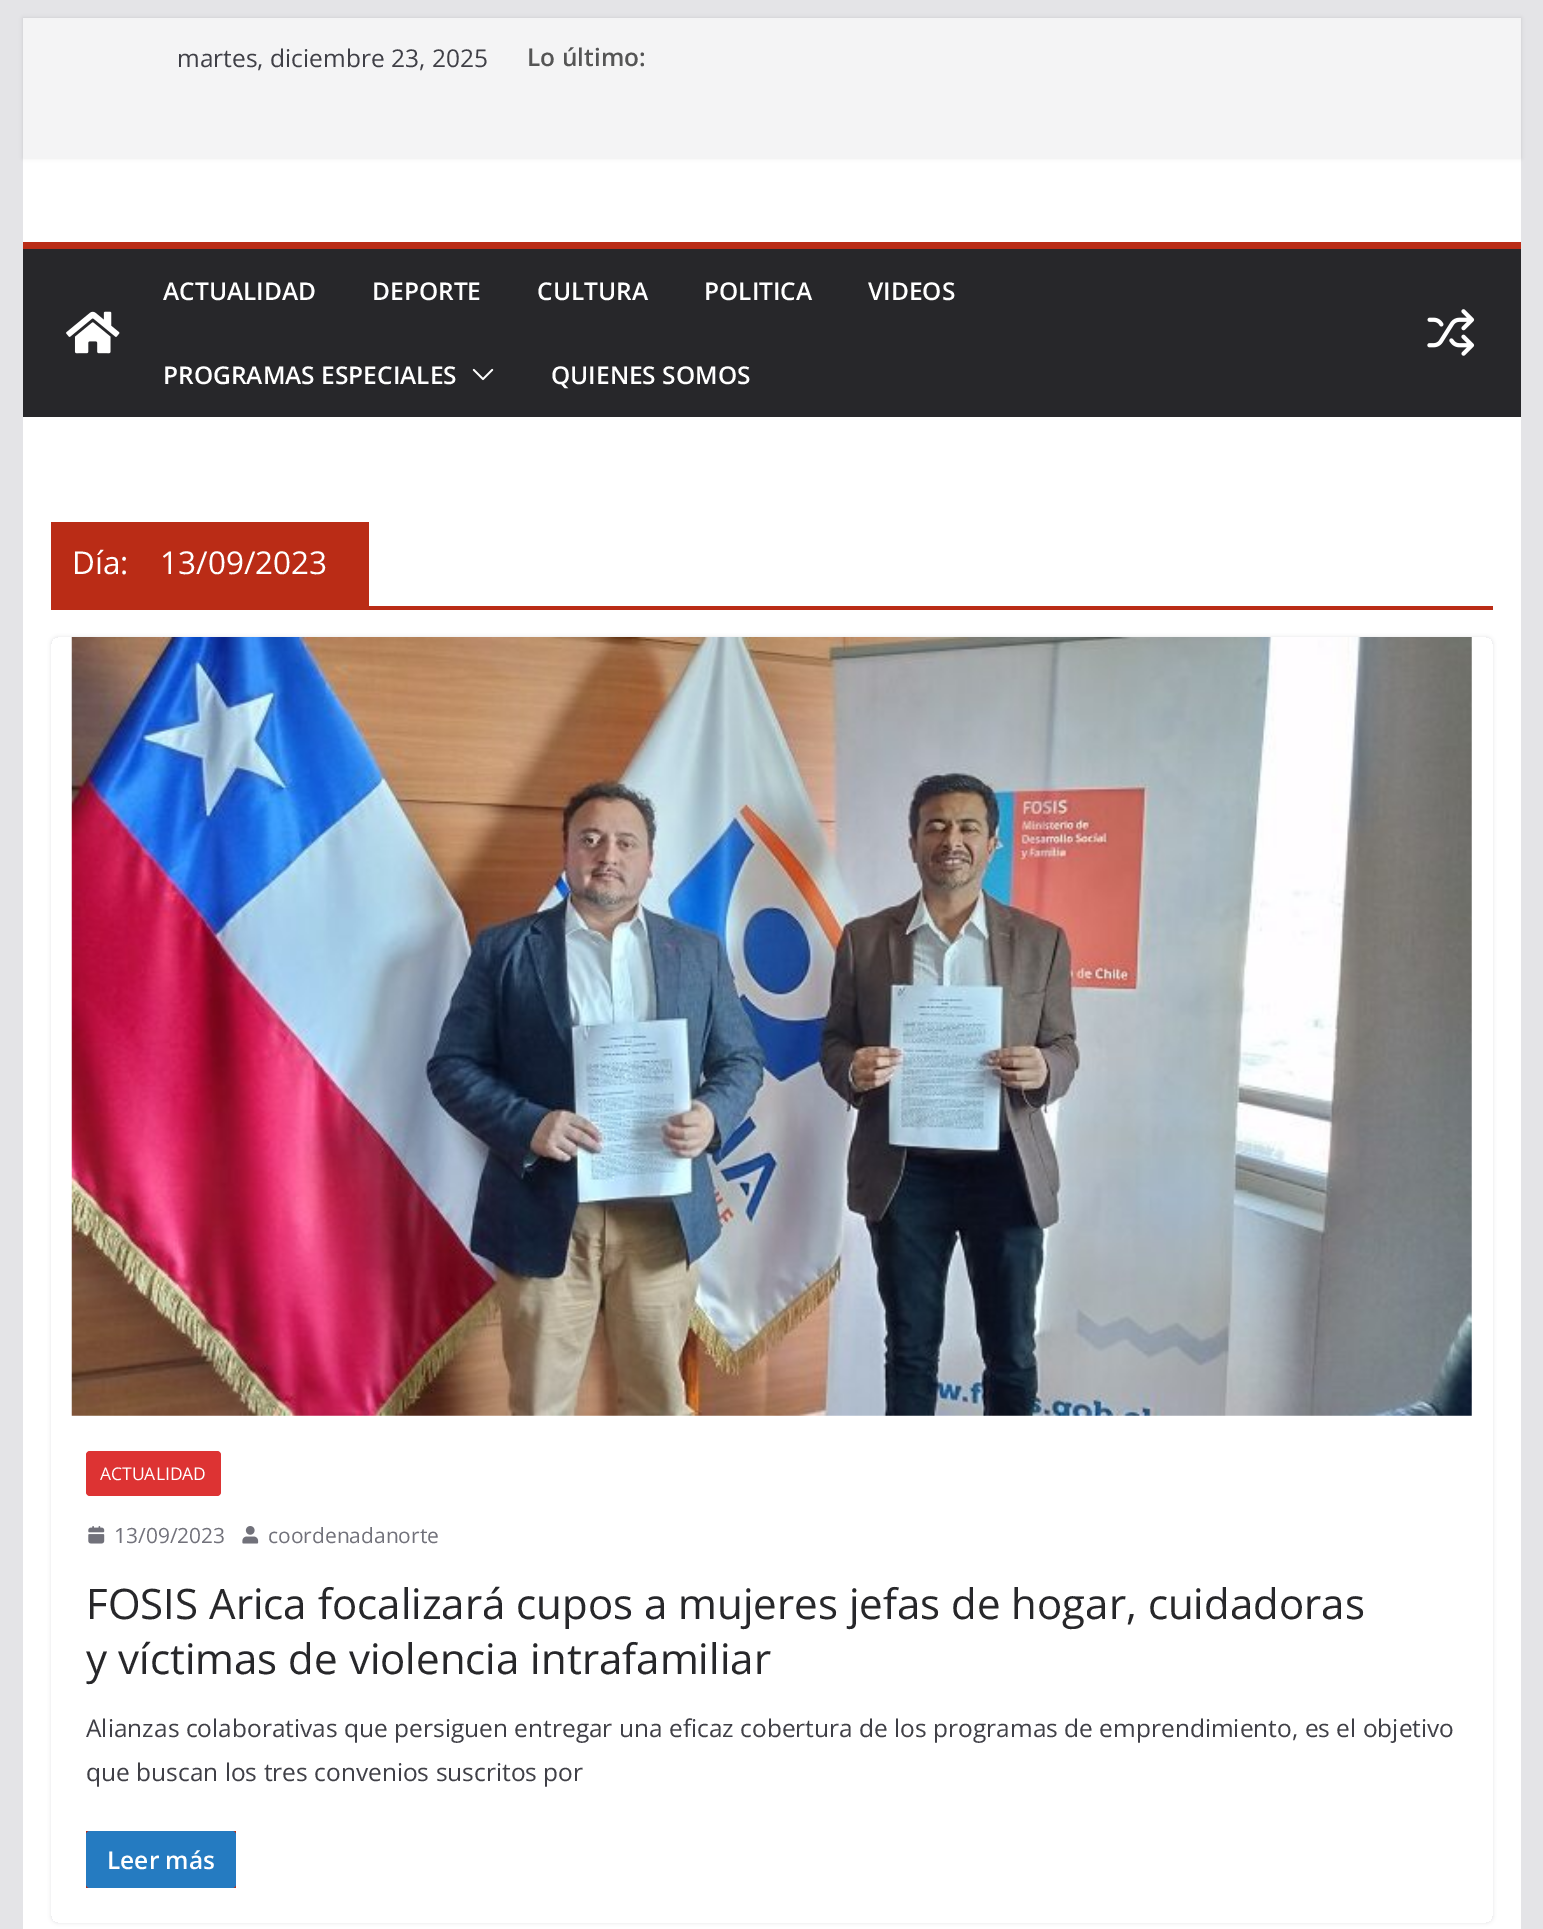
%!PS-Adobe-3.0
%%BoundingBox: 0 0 1543 1929
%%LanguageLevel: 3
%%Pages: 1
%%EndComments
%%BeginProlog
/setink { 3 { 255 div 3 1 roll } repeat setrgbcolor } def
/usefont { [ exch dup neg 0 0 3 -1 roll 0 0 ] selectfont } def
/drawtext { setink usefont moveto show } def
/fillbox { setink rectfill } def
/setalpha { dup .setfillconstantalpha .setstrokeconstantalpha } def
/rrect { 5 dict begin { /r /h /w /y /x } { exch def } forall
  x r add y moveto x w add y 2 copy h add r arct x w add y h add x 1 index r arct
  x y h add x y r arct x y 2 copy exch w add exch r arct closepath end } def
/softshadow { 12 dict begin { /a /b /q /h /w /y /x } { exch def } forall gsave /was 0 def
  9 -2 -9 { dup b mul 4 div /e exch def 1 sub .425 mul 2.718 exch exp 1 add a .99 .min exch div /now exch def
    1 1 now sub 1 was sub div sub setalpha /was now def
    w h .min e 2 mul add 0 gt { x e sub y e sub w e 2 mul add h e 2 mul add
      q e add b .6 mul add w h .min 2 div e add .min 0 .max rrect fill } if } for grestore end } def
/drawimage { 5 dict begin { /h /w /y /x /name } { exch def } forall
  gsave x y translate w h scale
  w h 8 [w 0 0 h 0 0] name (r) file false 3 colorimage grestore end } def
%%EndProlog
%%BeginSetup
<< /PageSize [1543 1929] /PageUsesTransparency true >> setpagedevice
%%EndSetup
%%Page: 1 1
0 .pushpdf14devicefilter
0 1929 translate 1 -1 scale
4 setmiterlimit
0 0 1543 1929 228 228 231 fillbox
23 158 1498 84 255 255 255 fillbox
0 0 0 setink
23 18 1498 140 0 2 0.1 softshadow
23 18 1498 140 244 244 245 fillbox
(martes, diciembre 23, 2025) 177 67 /OpenSans-Regular 24.5 63 63 70 drawtext
(Lo último:) 527 66 /OpenSans-SemiBold 24.5 85 85 85 drawtext
23 249 1498 168 39 39 42 fillbox
23 242 1498 7 186 44 22 fillbox
(assets/img1.rgb) 66 311 54 43 drawimage
(ACTUALIDAD) 163 300 /OpenSans-SemiBold 24.5 255 255 255 drawtext
(DEPORTE) 372 300 /OpenSans-SemiBold 24.5 255 255 255 drawtext
(CULTURA) 537 300 /OpenSans-SemiBold 24.5 255 255 255 drawtext
(POLITICA) 704 300 /OpenSans-SemiBold 24.5 255 255 255 drawtext
(VIDEOS) 868 300 /OpenSans-SemiBold 24.5 255 255 255 drawtext
(PROGRAMAS ESPECIALES) 163 384 /OpenSans-SemiBold 24.5 255 255 255 drawtext
(assets/img2.rgb) 472 368 22 13 drawimage
(QUIENES SOMOS) 551 384 /OpenSans-SemiBold 24.5 255 255 255 drawtext
(assets/img3.rgb) 1427 309 48 47 drawimage
23 417 1498 1512 255 255 255 fillbox
51 606 1442 4 186 44 22 fillbox
51 522 318 84 186 44 22 fillbox
(Día:) 72 574 /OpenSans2-Regular 31.5 255 255 255 drawtext
(13/09/2023) 160 574 /OpenSans2-Regular 31.5 255 255 255 drawtext
gsave
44 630 moveto 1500 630 lineto 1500 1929 lineto 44 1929 lineto closepath 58 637 moveto 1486 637 lineto 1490 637 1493 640 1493 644 curveto 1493 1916 lineto 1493 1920 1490 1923 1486 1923 curveto 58 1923 lineto 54 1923 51 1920 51 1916 curveto 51 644 lineto 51 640 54 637 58 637 curveto closepath eoclip newpath
228 228 231 setink
51 637 1442 1286 7 2 1 softshadow
grestore
(assets/img4.rgb) 71 637 1401 779 drawimage
221 51 51 setink
86 1451 135 45 4 rrect fill
(ACTUALIDAD) 100 1480 /OpenSans-Regular 17.5 255 255 255 drawtext
(assets/img5.rgb) 88 1526 17 18 drawimage
(13/09/2023) 114 1543 /OpenSans-Regular 21 113 113 122 drawtext
(assets/img6.rgb) 242 1526 17 18 drawimage
(coordenadanorte) 268 1543 /OpenSans-Regular 21 113 113 122 drawtext
(FOSIS Arica focalizará cupos a mujeres jefas de hogar, cuidadoras) 86 1619 /OpenSans2-Regular 42 39 39 42 drawtext
(y víctimas de violencia intrafamiliar) 86 1674 /OpenSans2-Regular 42 39 39 42 drawtext
(Alianzas colaborativas que persiguen entregar una eficaz cobertura de los programas de emprendimiento, es el objetivo) 86 1737 /OpenSans-Regular 24.5 63 63 70 drawtext
(que buscan los tres convenios suscritos por) 86 1781 /OpenSans-Regular 24.5 63 63 70 drawtext
86 1831 150 57 186 44 22 fillbox
37 123 193 setink
86 1831 150 57 4 rrect fill
(Leer más) 107 1869 /OpenSans-SemiBold 24.5 255 255 255 drawtext
.poppdf14devicefilter showpage
%%EOF
